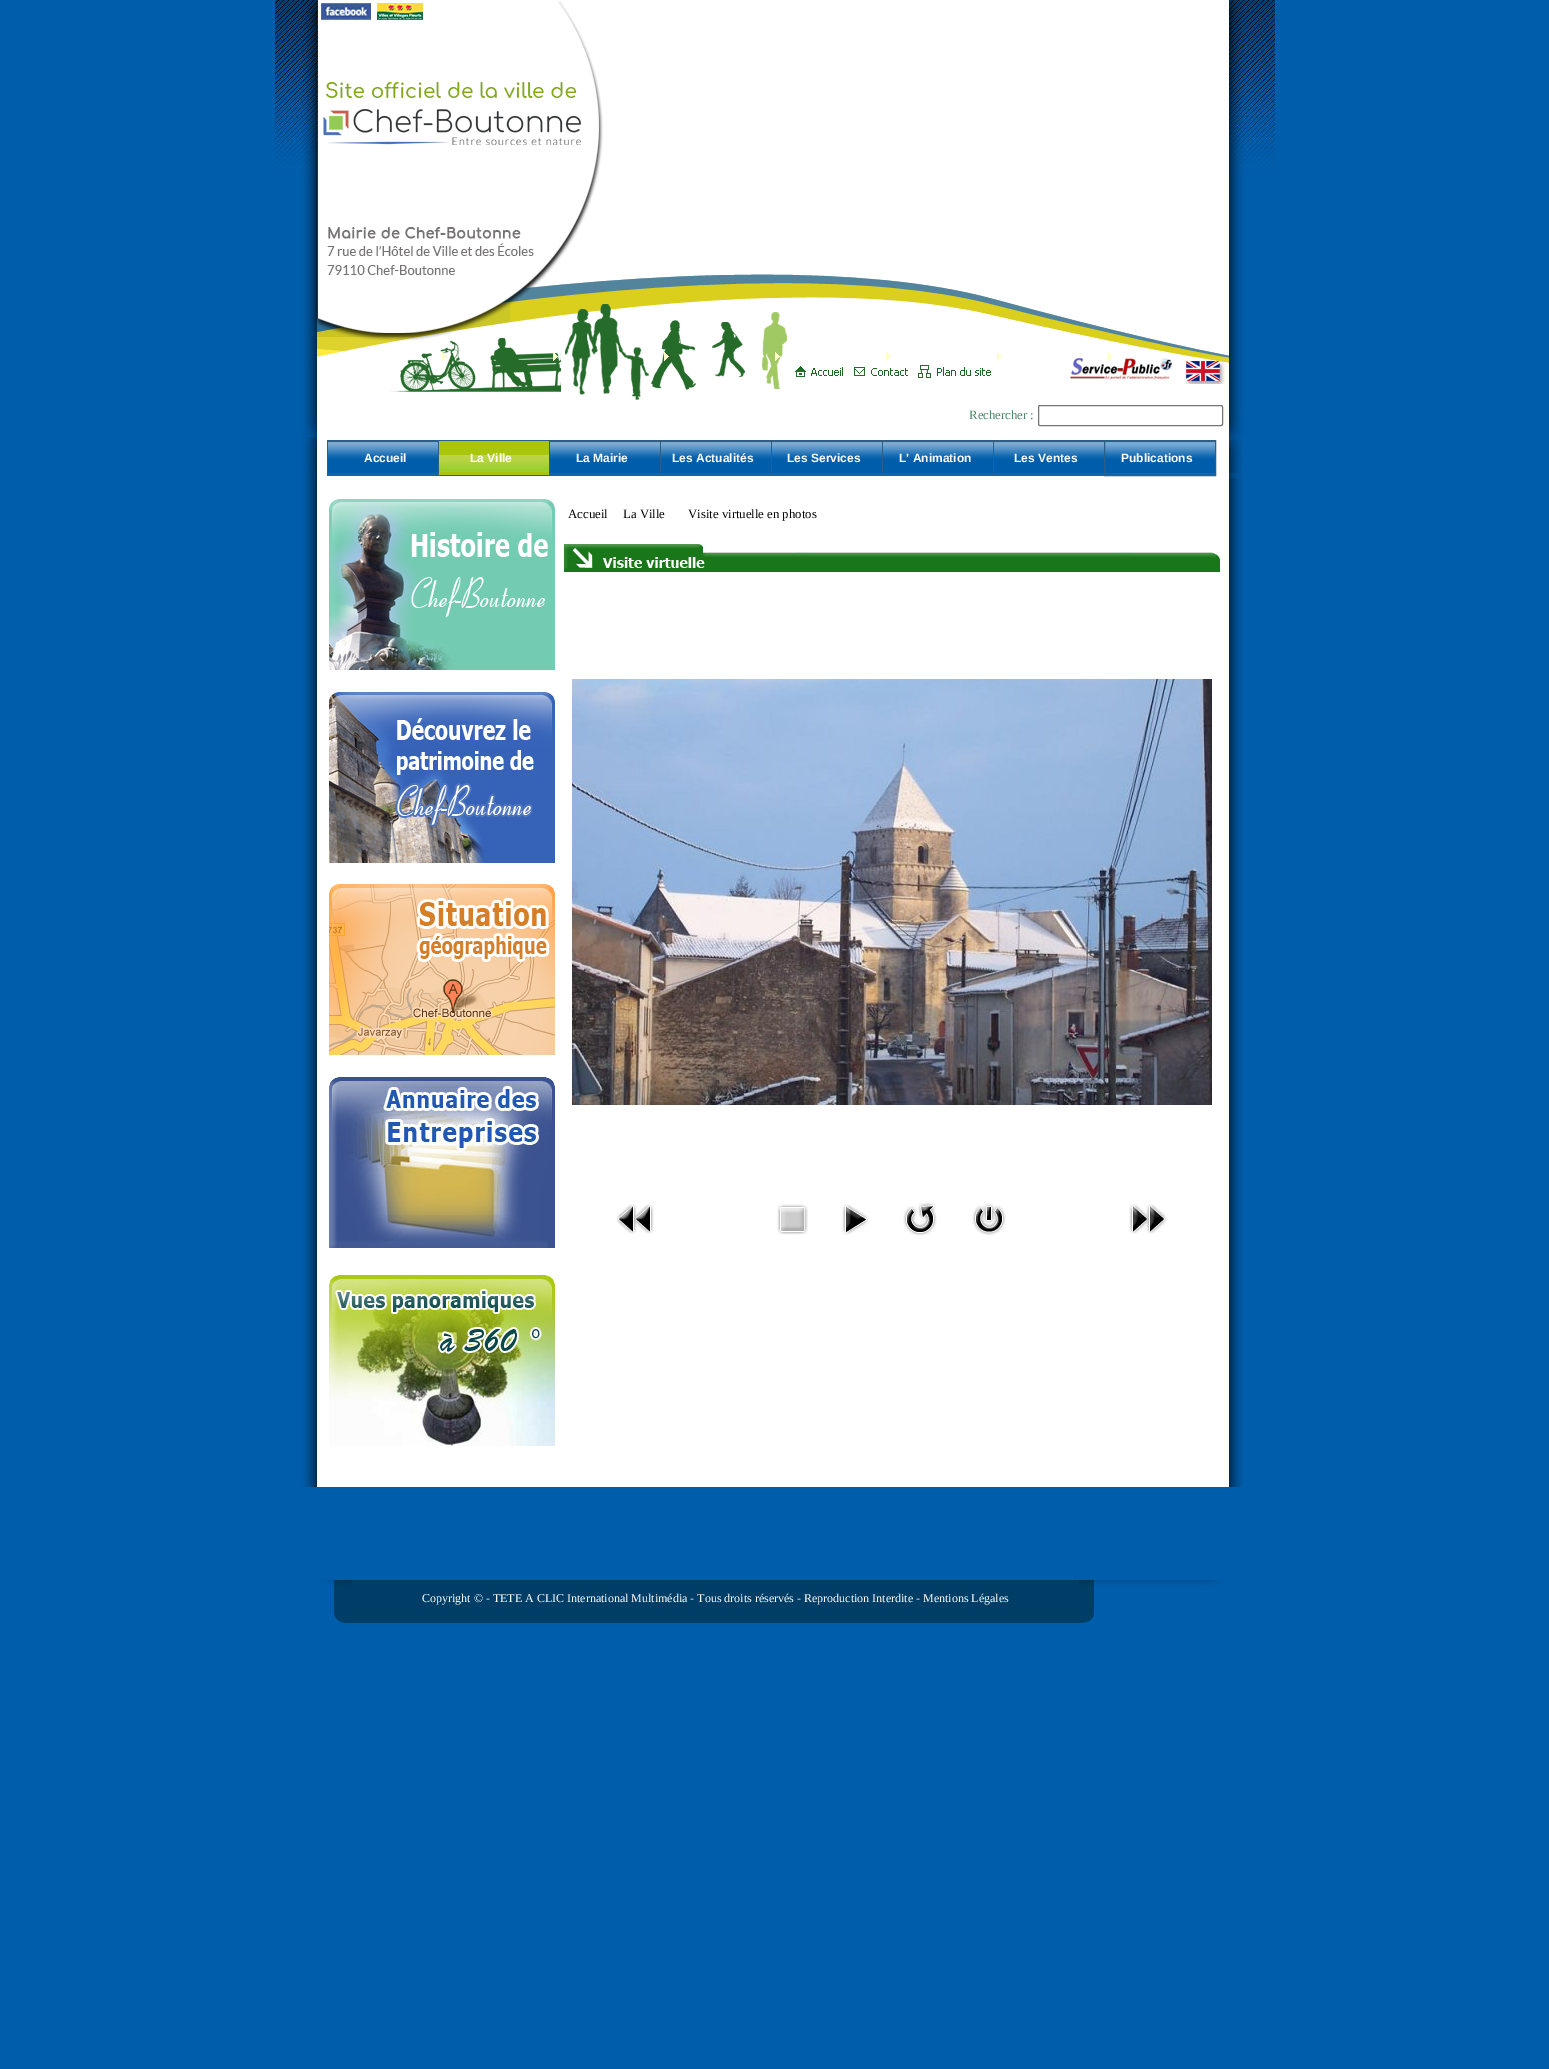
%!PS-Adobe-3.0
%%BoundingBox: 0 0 1549 2069
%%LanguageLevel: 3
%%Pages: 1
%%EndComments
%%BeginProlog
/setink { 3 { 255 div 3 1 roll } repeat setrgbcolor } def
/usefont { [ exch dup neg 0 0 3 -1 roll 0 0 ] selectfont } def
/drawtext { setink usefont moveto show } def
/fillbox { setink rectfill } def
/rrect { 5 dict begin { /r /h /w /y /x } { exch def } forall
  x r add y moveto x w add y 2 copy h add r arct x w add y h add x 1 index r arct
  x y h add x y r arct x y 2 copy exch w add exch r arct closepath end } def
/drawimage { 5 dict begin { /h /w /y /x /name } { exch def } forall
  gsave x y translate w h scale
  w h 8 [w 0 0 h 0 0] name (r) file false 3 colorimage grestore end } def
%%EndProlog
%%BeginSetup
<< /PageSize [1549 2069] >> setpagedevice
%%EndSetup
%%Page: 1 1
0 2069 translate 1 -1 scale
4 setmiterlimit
0 0 1549 2069 0 93 171 fillbox
317 0 912 479 255 255 255 fillbox
(assets/img1.rgb) 275 0 42 357 drawimage
(assets/img2.rgb) 317 0 912 357 drawimage
(assets/img3.rgb) 1229 0 46 357 drawimage
(assets/img4.rgb) 275 357 42 80 drawimage
(assets/img5.rgb) 390 357 391 43 drawimage
(assets/img6.rgb) 795 364 196 14 drawimage
(assets/img7.rgb) 1070 357 153 27 drawimage
(assets/img8.rgb) 1223 357 6 27 drawimage
(Rechercher :) 969 419 /LiberationSerif-Regular 12.75 74 137 102 drawtext
118 118 118 setink
1038.5 405.5 184 20 1.5 rrect stroke
(assets/img9.rgb) 1229 357 46 80 drawimage
(assets/img10.rgb) 1229 413 12 24 drawimage
(assets/img11.rgb) 303 437 14 42 drawimage
(assets/img12.rgb) 308 463 9 6 drawimage
(assets/img13.rgb) 328 441 110 34 drawimage
327 440 777 1 43 94 136 fillbox
327 475 777 1 43 94 136 fillbox
327 440 1 36 43 94 136 fillbox
(Accueil) 364 462 /LiberationSans-Bold 12 255 255 255 drawtext
(assets/img14.rgb) 439 441 110 34 drawimage
438 440 1 36 43 94 136 fillbox
(assets/img15.rgb) 442 352 5 9 drawimage
(La Ville) 470 462 /LiberationSans-Bold 12 255 255 255 drawtext
(assets/img13.rgb) 550 441 110 34 drawimage
549 440 1 36 43 94 136 fillbox
(assets/img16.rgb) 553 352 5 9 drawimage
(La Mairie) 576 462 /LiberationSans-Bold 12 255 255 255 drawtext
(assets/img13.rgb) 661 441 110 34 drawimage
660 440 1 36 43 94 136 fillbox
(assets/img17.rgb) 664 352 5 9 drawimage
(Les Actualités) 672 462 /LiberationSans-Bold 12 255 255 255 drawtext
(assets/img13.rgb) 772 441 110 34 drawimage
771 440 1 36 43 94 136 fillbox
(assets/img18.rgb) 775 352 5 9 drawimage
(Les Services) 787 462 /LiberationSans-Bold 12 255 255 255 drawtext
(assets/img13.rgb) 883 441 110 34 drawimage
882 440 1 36 43 94 136 fillbox
(assets/img19.rgb) 886 352 5 9 drawimage
(L' Animation) 899 462 /LiberationSans-Bold 12 255 255 255 drawtext
(assets/img13.rgb) 994 441 110 34 drawimage
993 440 1 36 43 94 136 fillbox
(assets/img19.rgb) 997 352 5 9 drawimage
(Les Ventes) 1014 462 /LiberationSans-Bold 12 255 255 255 drawtext
(assets/img13.rgb) 1105 441 110 34 drawimage
43 94 136 setink
1104.5 440.5 111 35 rectstroke
(assets/img19.rgb) 1108 352 5 9 drawimage
(Publications) 1121 462 /LiberationSans-Bold 12 255 255 255 drawtext
(assets/img20.rgb) 1229 437 14 42 drawimage
(assets/img21.rgb) 1229 470 12 3 drawimage
(assets/img22.rgb) 303 479 14 1008 drawimage
317 479 912 1008 255 255 255 fillbox
(assets/img23.rgb) 329 499 226 171 drawimage
(assets/img24.rgb) 329 692 226 171 drawimage
(assets/img25.rgb) 329 884 226 171 drawimage
(assets/img26.rgb) 329 1077 226 171 drawimage
(assets/img27.rgb) 329 1275 226 171 drawimage
(assets/img28.rgb) 1229 479 14 1008 drawimage
(Accueil) 568 518 /LiberationSerif-Regular 12.75 0 0 0 drawtext
(La Ville) 623 518 /LiberationSerif-Regular 12.75 0 0 0 drawtext
(Visite virtuelle en photos) 688 518 /LiberationSerif-Regular 12.75 0 0 0 drawtext
(assets/img29.rgb) 564 544 656 28 drawimage
(assets/img30.rgb) 572 679 640 426 drawimage
(assets/img31.rgb) 616 1204 38 30 drawimage
(assets/img32.rgb) 777 1204 31 31 drawimage
(assets/img33.rgb) 842 1204 27 31 drawimage
(assets/img34.rgb) 903 1202 34 34 drawimage
(assets/img35.rgb) 972 1203 34 33 drawimage
(assets/img36.rgb) 1129 1204 38 30 drawimage
(assets/img37.rgb) 303 1580 49 36 drawimage
352 1580 727 43 0 62 103 fillbox
(Copyright © - TETE A CLIC International Multimédia - Tous droits réservés - Reproduction Interdite - Mentions Légales) 422 1602 /LiberationSerif-Regular 12 255 255 255 drawtext
(assets/img38.rgb) 1079 1580 144 36 drawimage
(assets/img39.rgb) 334 1616 18 7 drawimage
(assets/img40.rgb) 1079 1616 15 8 drawimage
showpage
%%EOF
